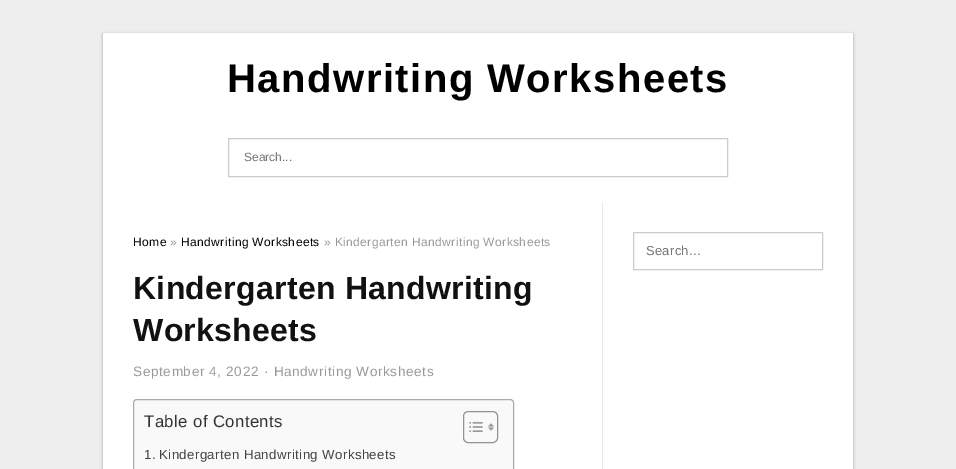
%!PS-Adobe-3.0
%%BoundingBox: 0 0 956 469
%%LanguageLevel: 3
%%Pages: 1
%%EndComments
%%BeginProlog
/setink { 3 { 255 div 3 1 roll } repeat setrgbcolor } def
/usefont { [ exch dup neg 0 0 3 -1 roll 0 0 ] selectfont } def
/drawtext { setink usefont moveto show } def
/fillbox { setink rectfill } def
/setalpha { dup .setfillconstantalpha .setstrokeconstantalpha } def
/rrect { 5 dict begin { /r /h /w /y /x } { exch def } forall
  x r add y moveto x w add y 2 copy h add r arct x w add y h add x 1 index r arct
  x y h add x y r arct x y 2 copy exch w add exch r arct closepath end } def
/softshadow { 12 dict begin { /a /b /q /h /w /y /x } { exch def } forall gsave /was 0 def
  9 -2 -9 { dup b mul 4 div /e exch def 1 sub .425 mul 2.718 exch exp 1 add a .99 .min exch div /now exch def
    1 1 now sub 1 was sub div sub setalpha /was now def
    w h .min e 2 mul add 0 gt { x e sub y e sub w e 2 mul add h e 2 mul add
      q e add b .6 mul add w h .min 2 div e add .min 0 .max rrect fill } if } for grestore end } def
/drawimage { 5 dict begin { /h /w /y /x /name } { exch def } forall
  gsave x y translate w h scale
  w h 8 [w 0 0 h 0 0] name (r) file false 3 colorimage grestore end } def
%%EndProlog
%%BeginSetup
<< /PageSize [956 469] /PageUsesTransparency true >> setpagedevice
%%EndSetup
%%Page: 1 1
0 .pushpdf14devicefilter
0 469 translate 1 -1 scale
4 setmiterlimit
0 0 956 469 238 238 238 fillbox
0 0 0 setink
103 34 750 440 0 1.5 0.3 softshadow
103 33 750 436 255 255 255 fillbox
/LiberationSans-Bold 40 usefont
0 0 0 setink
227 92 moveto 1.5 0 (Handwriting Worksheets) ashow
204 204 204 setink
228.5 138.5 499 38 rectstroke
(Search...) 244 161 /LiberationSans-Regular 12 117 117 117 drawtext
602 202 1 267 232 232 232 fillbox
0 0 0 setink
133 246 moveto 0.4 0 (Home) ashow
153 153 153 setink
170 246 moveto 0.4 0 (») ashow
0 0 0 setink
181 246 moveto 0.4 0 (Handwriting Worksheets) ashow
153 153 153 setink
324 246 moveto 0.4 0 (» Kindergarten Handwriting Worksheets) ashow
/LiberationSans-Bold 32 usefont
17 17 17 setink
133 299 moveto 0.3 0 (Kindergarten Handwriting) ashow
133 341 moveto 0.3 0 (Worksheets) ashow
/LiberationSans-Regular 13.6 usefont
153 153 153 setink
133 376 moveto 0.6 0 (September 4, 2022) ashow
264 376 moveto 0.6 0 (· Handwriting Worksheets) ashow
249 249 249 setink
133.5 399.5 380 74 3.5 rrect gsave fill grestore
170 170 170 setink
stroke
/LiberationSans-Regular 16.75 usefont
51 51 51 setink
144 427 moveto 0.4 0 (Table of Contents) ashow
153 145 145 setink
463.5 411.5 34 31 4.5 rrect stroke
(assets/img1.rgb) 469 422 14 10 drawimage
(assets/img2.rgb) 488 423 6 8 drawimage
/LiberationSans-Regular 13.25 usefont
68 68 68 setink
144 459 moveto 0.4 0 (1.) ashow
159 459 moveto 0.4 0 (Kindergarten Handwriting Worksheets) ashow
204 204 204 setink
633.5 232.5 189 37 rectstroke
/LiberationSans-Regular 13 usefont
117 117 117 setink
646 255 moveto 0.3 0 (Search...) ashow
.poppdf14devicefilter showpage
%%EOF
